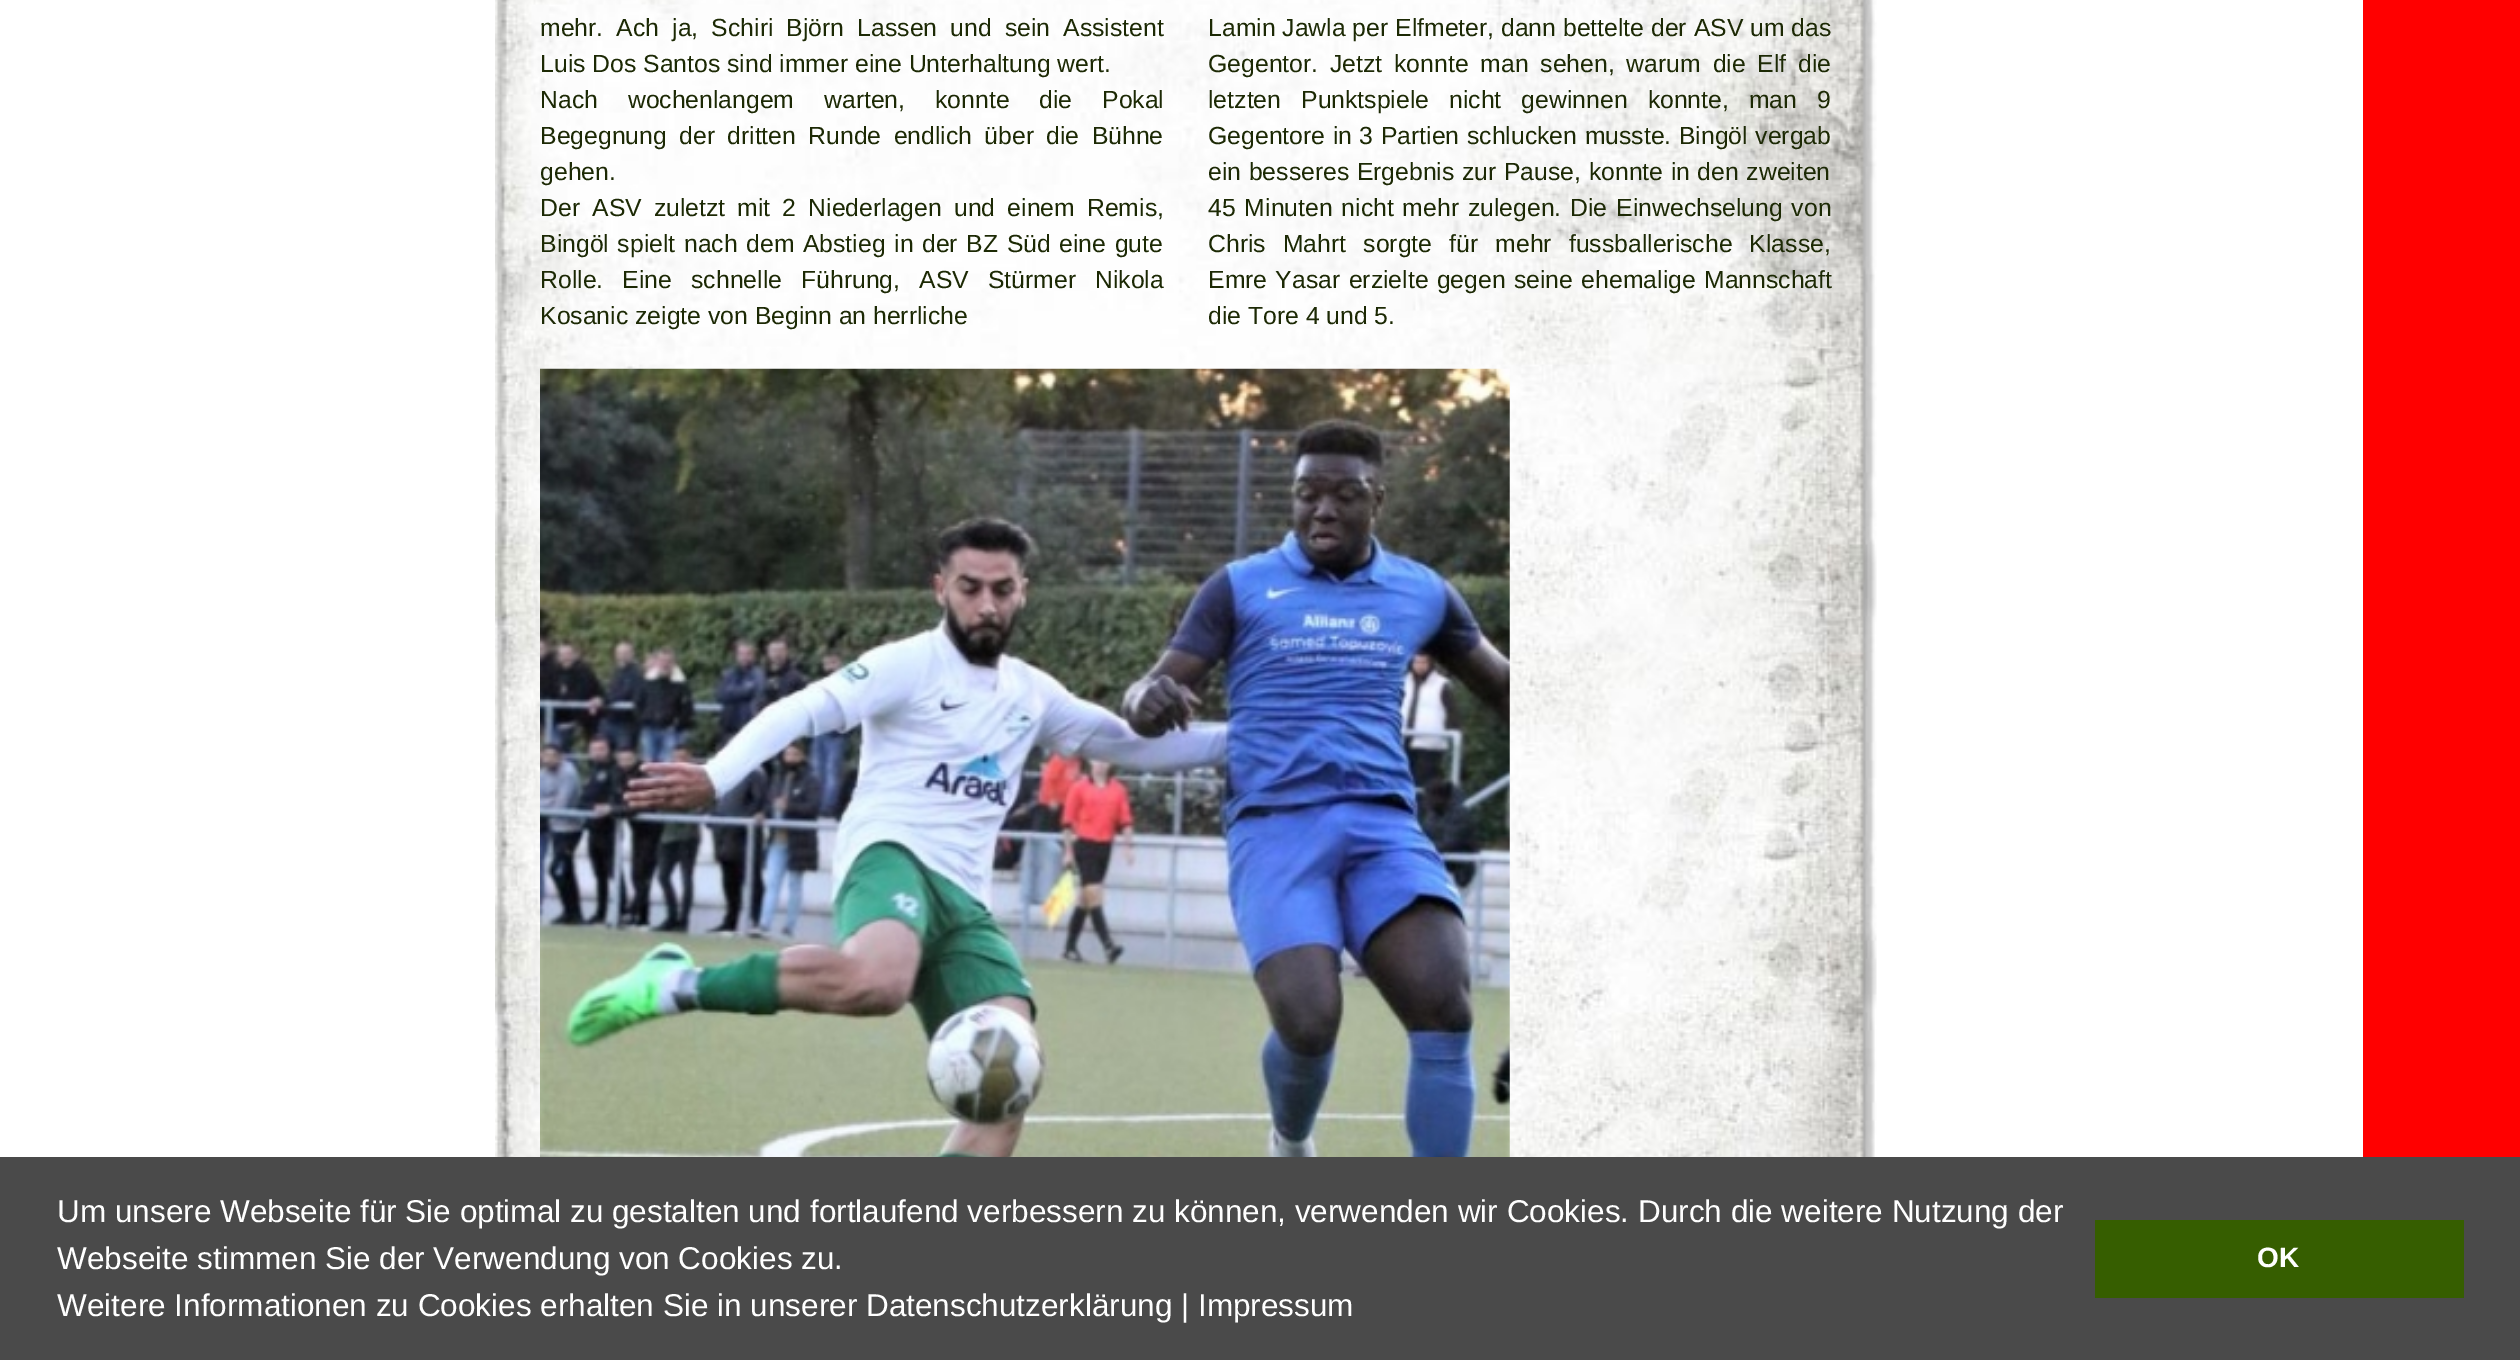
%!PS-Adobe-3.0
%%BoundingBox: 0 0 2520 1360
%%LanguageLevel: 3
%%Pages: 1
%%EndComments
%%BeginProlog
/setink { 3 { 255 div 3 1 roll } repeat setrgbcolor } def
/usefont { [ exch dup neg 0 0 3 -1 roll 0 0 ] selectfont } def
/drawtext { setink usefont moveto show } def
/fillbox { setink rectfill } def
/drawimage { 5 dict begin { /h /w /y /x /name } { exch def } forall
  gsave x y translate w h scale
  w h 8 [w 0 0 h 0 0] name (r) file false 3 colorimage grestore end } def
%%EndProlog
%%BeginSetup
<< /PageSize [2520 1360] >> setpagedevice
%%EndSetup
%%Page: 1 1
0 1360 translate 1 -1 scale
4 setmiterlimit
0 0 2520 1360 255 0 0 fillbox
0 0 2363 1157 255 255 255 fillbox
(assets/img1.rgb) 495 0 1382 1157 drawimage
/LiberationSans-Regular 24.75 usefont
28 41 4 setink
540 36 moveto 6.25 0 32 (mehr. Ach ja, Schiri Björn Lassen und sein Assistent) widthshow
(Luis Dos Santos sind immer eine Unterhaltung wert.) 540 72 /LiberationSans-Regular 24.75 28 41 4 drawtext
540 108 moveto 23 0 32 (Nach wochenlangem warten, konnte die Pokal) widthshow
540 144 moveto 5.5 0 32 (Begegnung der dritten Runde endlich über die Bühne) widthshow
(gehen.) 540 180 /LiberationSans-Regular 24.75 28 41 4 drawtext
540 216 moveto 5.25 0 32 (Der ASV zuletzt mit 2 Niederlagen und einem Remis,) widthshow
540 252 moveto 1.75 0 32 (Bingöl spielt nach dem Abstieg in der BZ Süd eine gute) widthshow
540 288 moveto 12.25 0 32 (Rolle. Eine schnelle Führung, ASV Stürmer Nikola) widthshow
(Kosanic zeigte von Beginn an herrliche) 540 324 /LiberationSans-Regular 24.75 28 41 4 drawtext
(Lamin Jawla per Elfmeter, dann bettelte der ASV um das) 1208 36 /LiberationSans-Regular 24.75 28 41 4 drawtext
1208 72 moveto 5 0 32 (Gegentor. Jetzt konnte man sehen, warum die Elf die) widthshow
1208 108 moveto 13.25 0 32 (letzten Punktspiele nicht gewinnen konnte, man 9) widthshow
1208 144 moveto 0.75 0 32 (Gegentore in 3 Partien schlucken musste. Bingöl vergab) widthshow
1208 180 moveto 0.75 0 32 (ein besseres Ergebnis zur Pause, konnte in den zweiten) widthshow
1208 216 moveto 2 0 32 (45 Minuten nicht mehr zulegen. Die Einwechselung von) widthshow
1208 252 moveto 10.25 0 32 (Chris Mahrt sorgte für mehr fussballerische Klasse,) widthshow
1208 288 moveto 1.5 0 32 (Emre Yasar erzielte gegen seine ehemalige Mannschaft) widthshow
(die Tore 4 und 5.) 1208 324 /LiberationSans-Regular 24.75 28 41 4 drawtext
(assets/img2.rgb) 540 368 970 789 drawimage
0 1157 2520 203 74 74 74 fillbox
(Um unsere Webseite für Sie optimal zu gestalten und fortlaufend verbessern zu können, verwenden wir Cookies. Durch die weitere Nutzung der) 57 1222 /LiberationSans-Regular 31.5 255 255 255 drawtext
(Webseite stimmen Sie der Verwendung von Cookies zu.) 57 1269 /LiberationSans-Regular 31.5 255 255 255 drawtext
(Weitere Informationen zu Cookies erhalten Sie in unserer Datenschutzerklärung | Impressum) 57 1316 /LiberationSans-Regular 31.5 255 255 255 drawtext
2095 1220 369 78 54 94 0 fillbox
(OK) 2257 1267 /LiberationSans-Bold 28 255 255 255 drawtext
showpage
%%EOF
